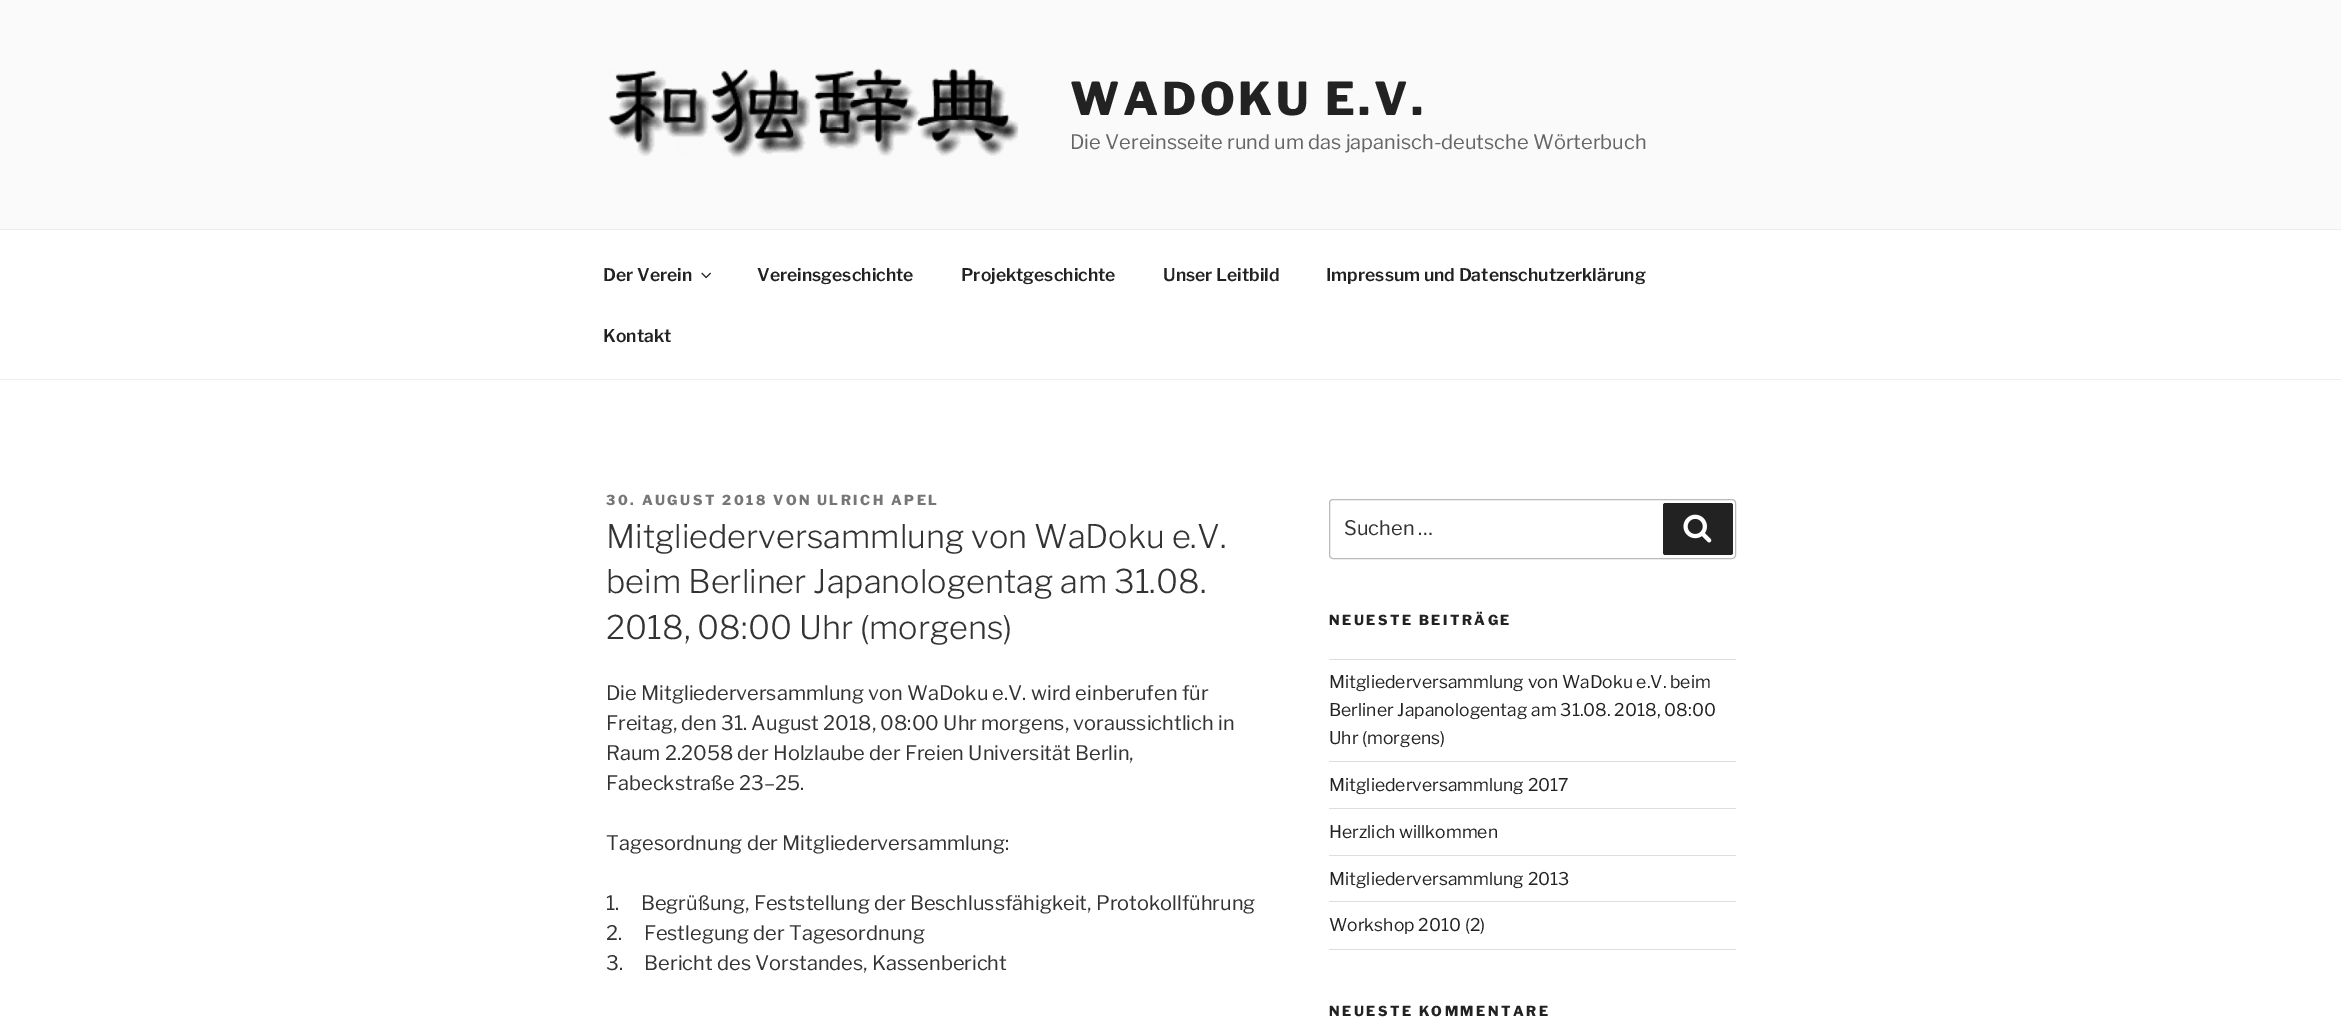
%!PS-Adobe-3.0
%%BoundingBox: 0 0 2341 1018
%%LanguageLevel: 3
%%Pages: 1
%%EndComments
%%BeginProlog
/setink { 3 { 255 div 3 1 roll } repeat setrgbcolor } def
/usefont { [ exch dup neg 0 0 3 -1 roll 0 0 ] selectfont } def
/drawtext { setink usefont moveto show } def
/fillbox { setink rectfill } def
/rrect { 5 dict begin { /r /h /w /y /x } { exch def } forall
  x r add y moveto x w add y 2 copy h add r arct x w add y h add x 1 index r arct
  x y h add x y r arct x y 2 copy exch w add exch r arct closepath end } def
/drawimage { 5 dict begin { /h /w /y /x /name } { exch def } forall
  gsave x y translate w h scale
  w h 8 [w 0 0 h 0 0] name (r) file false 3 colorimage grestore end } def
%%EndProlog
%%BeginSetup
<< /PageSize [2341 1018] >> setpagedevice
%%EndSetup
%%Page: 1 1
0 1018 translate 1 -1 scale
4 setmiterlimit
0 0 2341 1018 255 255 255 fillbox
0 0 2341 229 250 250 250 fillbox
(assets/img1.rgb) 608 68 411 90 drawimage
/LibreFranklin-ExtraBold 45 usefont
34 34 34 setink
1070 115 moveto 3.6 0 (WADOKU E.V.) ashow
(Die Vereinsseite rund um das japanisch-deutsche Wörterbuch) 1070 149 /LibreFranklin-Regular 20 102 102 102 drawtext
0 229 2341 1 238 238 238 fillbox
0 379 2341 1 238 238 238 fillbox
(Der Verein) 603 281 /LibreFranklin-SemiBold 17.5 34 34 34 drawtext
(assets/img2.rgb) 701 272 10 7 drawimage
(Vereinsgeschichte) 757 281 /LibreFranklin-SemiBold 17.5 34 34 34 drawtext
(Projektgeschichte) 961 281 /LibreFranklin-SemiBold 17.5 34 34 34 drawtext
(Unser Leitbild) 1163 281 /LibreFranklin-SemiBold 17.5 34 34 34 drawtext
(Impressum und Datenschutzerklärung) 1326 281 /LibreFranklin-SemiBold 17.5 34 34 34 drawtext
(Kontakt) 603 342 /LibreFranklin-SemiBold 17.5 34 34 34 drawtext
/LibreFranklin-ExtraBold 13.75 usefont
118 118 118 setink
606 505 moveto 2.5 0 (30. AUGUST 2018 VON ULRICH APEL) ashow
(Mitgliederversammlung von WaDoku e.V.) 606 548 /LibreFranklin-Light 32.5 51 51 51 drawtext
(beim Berliner Japanologentag am 31.08.) 606 593 /LibreFranklin-Light 32.5 51 51 51 drawtext
(2018, 08:00 Uhr \(morgens\)) 606 639 /LibreFranklin-Light 32.5 51 51 51 drawtext
(Die Mitgliederversammlung von WaDoku e.V. wird einberufen für) 606 700 /LibreFranklin-Regular 20 51 51 51 drawtext
(Freitag, den 31. August 2018, 08:00 Uhr morgens, voraussichtlich in) 606 730 /LibreFranklin-Regular 20 51 51 51 drawtext
(Raum 2.2058 der Holzlaube der Freien Universität Berlin,) 606 760 /LibreFranklin-Regular 20 51 51 51 drawtext
(Fabeckstraße 23–25.) 606 790 /LibreFranklin-Regular 20 51 51 51 drawtext
(Tagesordnung der Mitgliederversammlung:) 606 850 /LibreFranklin-Regular 20 51 51 51 drawtext
(1.     Begrüßung, Feststellung der Beschlussfähigkeit, Protokollführung) 606 910 /LibreFranklin-Regular 20 51 51 51 drawtext
(2.     Festlegung der Tagesordnung) 606 940 /LibreFranklin-Regular 20 51 51 51 drawtext
(3.     Bericht des Vorstandes, Kassenbericht) 606 970 /LibreFranklin-Regular 20 51 51 51 drawtext
187 187 187 setink
1329.5 499.5 406 59 3.5 rrect stroke
(Suchen …) 1344 535 /LibreFranklin-Regular 20 51 51 51 drawtext
34 34 34 setink
1663 503 70 52 2.5 rrect fill
(assets/img3.rgb) 1683 514 29 29 drawimage
/LibreFranklin-ExtraBold 13.75 usefont
1329 625 moveto 2.5 0 (NEUESTE BEITRÄGE) ashow
1329 659 407 1 221 221 221 fillbox
1329 761 407 1 221 221 221 fillbox
(Mitgliederversammlung von WaDoku e.V. beim) 1329 688 /LibreFranklin-Regular 17.5 34 34 34 drawtext
(Berliner Japanologentag am 31.08. 2018, 08:00) 1329 716 /LibreFranklin-Regular 17.5 34 34 34 drawtext
(Uhr \(morgens\)) 1329 744 /LibreFranklin-Regular 17.5 34 34 34 drawtext
1329 808 407 1 221 221 221 fillbox
(Mitgliederversammlung 2017) 1329 791 /LibreFranklin-Regular 17.5 34 34 34 drawtext
1329 855 407 1 221 221 221 fillbox
(Herzlich willkommen) 1329 838 /LibreFranklin-Regular 17.5 34 34 34 drawtext
1329 901 407 1 221 221 221 fillbox
(Mitgliederversammlung 2013) 1329 885 /LibreFranklin-Regular 17.5 34 34 34 drawtext
1329 949 407 1 221 221 221 fillbox
(Workshop 2010 \(2\)) 1329 931 /LibreFranklin-Regular 17.5 34 34 34 drawtext
/LibreFranklin-ExtraBold 13.75 usefont
1329 1016 moveto 2.5 0 (NEUESTE KOMMENTARE) ashow
showpage
%%EOF
